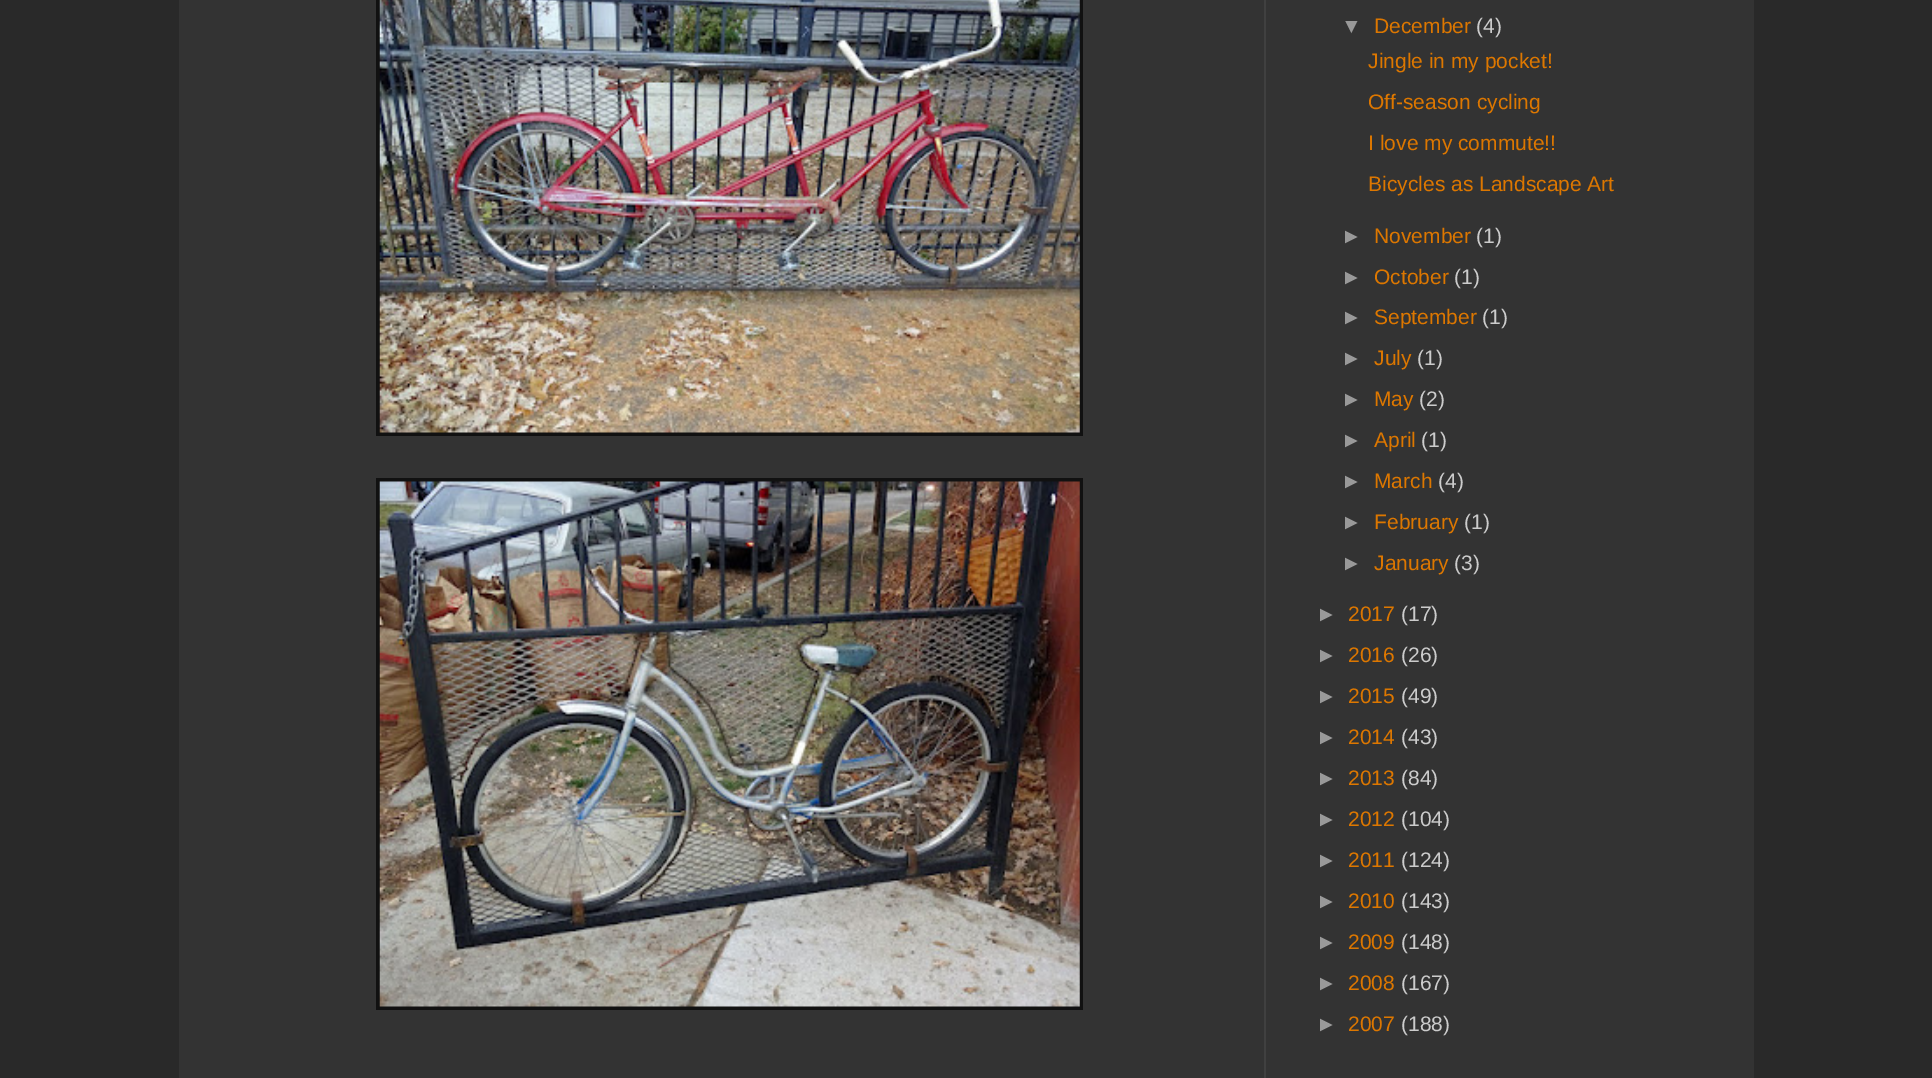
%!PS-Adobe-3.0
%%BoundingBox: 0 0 1932 1078
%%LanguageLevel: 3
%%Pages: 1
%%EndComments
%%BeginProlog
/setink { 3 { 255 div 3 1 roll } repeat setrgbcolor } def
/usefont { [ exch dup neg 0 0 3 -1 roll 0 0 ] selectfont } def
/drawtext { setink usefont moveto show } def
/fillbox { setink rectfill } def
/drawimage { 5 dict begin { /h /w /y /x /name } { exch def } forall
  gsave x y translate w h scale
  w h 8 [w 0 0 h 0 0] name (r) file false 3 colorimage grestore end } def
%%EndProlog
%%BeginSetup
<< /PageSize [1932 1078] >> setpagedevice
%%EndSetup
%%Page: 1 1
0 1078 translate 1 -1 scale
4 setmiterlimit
0 0 1932 1078 41 41 41 fillbox
179 0 1575 1078 51 51 51 fillbox
1264 0 2 1078 64 64 64 fillbox
376 0 707 436 17 17 17 fillbox
(assets/img1.rgb) 379 0 701 433 drawimage
376 478 707 532 17 17 17 fillbox
(assets/img2.rgb) 379 481 701 526 drawimage
(▼) 1341 33 /LiberationSans-Regular 21 153 153 153 drawtext
(December) 1374 33 /LiberationSans-Regular 21 221 119 0 drawtext
(\(4\)) 1476 33 /LiberationSans-Regular 21 204 204 204 drawtext
(Jingle in my pocket!) 1368 68 /LiberationSans-Regular 21 221 119 0 drawtext
(Off-season cycling) 1368 109 /LiberationSans-Regular 21 221 119 0 drawtext
(I love my commute!!) 1368 150 /LiberationSans-Regular 21 221 119 0 drawtext
(Bicycles as Landscape Art) 1368 191 /LiberationSans-Regular 21 221 119 0 drawtext
(►) 1341 243 /LiberationSans-Regular 21 153 153 153 drawtext
(November) 1374 243 /LiberationSans-Regular 21 221 119 0 drawtext
(\(1\)) 1476 243 /LiberationSans-Regular 21 204 204 204 drawtext
(►) 1341 284 /LiberationSans-Regular 21 153 153 153 drawtext
(October) 1374 284 /LiberationSans-Regular 21 221 119 0 drawtext
(\(1\)) 1454 284 /LiberationSans-Regular 21 204 204 204 drawtext
(►) 1341 324 /LiberationSans-Regular 21 153 153 153 drawtext
(September) 1374 324 /LiberationSans-Regular 21 221 119 0 drawtext
(\(1\)) 1482 324 /LiberationSans-Regular 21 204 204 204 drawtext
(►) 1341 365 /LiberationSans-Regular 21 153 153 153 drawtext
(July) 1374 365 /LiberationSans-Regular 21 221 119 0 drawtext
(\(1\)) 1417 365 /LiberationSans-Regular 21 204 204 204 drawtext
(►) 1341 406 /LiberationSans-Regular 21 153 153 153 drawtext
(May) 1374 406 /LiberationSans-Regular 21 221 119 0 drawtext
(\(2\)) 1419 406 /LiberationSans-Regular 21 204 204 204 drawtext
(►) 1341 447 /LiberationSans-Regular 21 153 153 153 drawtext
(April) 1374 447 /LiberationSans-Regular 21 221 119 0 drawtext
(\(1\)) 1421 447 /LiberationSans-Regular 21 204 204 204 drawtext
(►) 1341 488 /LiberationSans-Regular 21 153 153 153 drawtext
(March) 1374 488 /LiberationSans-Regular 21 221 119 0 drawtext
(\(4\)) 1438 488 /LiberationSans-Regular 21 204 204 204 drawtext
(►) 1341 529 /LiberationSans-Regular 21 153 153 153 drawtext
(February) 1374 529 /LiberationSans-Regular 21 221 119 0 drawtext
(\(1\)) 1464 529 /LiberationSans-Regular 21 204 204 204 drawtext
(►) 1341 570 /LiberationSans-Regular 21 153 153 153 drawtext
(January) 1374 570 /LiberationSans-Regular 21 221 119 0 drawtext
(\(3\)) 1454 570 /LiberationSans-Regular 21 204 204 204 drawtext
(►) 1316 621 /LiberationSans-Regular 21 153 153 153 drawtext
(2017) 1348 621 /LiberationSans-Regular 21 221 119 0 drawtext
(\(17\)) 1401 621 /LiberationSans-Regular 21 204 204 204 drawtext
(►) 1316 662 /LiberationSans-Regular 21 153 153 153 drawtext
(2016) 1348 662 /LiberationSans-Regular 21 221 119 0 drawtext
(\(26\)) 1401 662 /LiberationSans-Regular 21 204 204 204 drawtext
(►) 1316 703 /LiberationSans-Regular 21 153 153 153 drawtext
(2015) 1348 703 /LiberationSans-Regular 21 221 119 0 drawtext
(\(49\)) 1401 703 /LiberationSans-Regular 21 204 204 204 drawtext
(►) 1316 744 /LiberationSans-Regular 21 153 153 153 drawtext
(2014) 1348 744 /LiberationSans-Regular 21 221 119 0 drawtext
(\(43\)) 1401 744 /LiberationSans-Regular 21 204 204 204 drawtext
(►) 1316 785 /LiberationSans-Regular 21 153 153 153 drawtext
(2013) 1348 785 /LiberationSans-Regular 21 221 119 0 drawtext
(\(84\)) 1401 785 /LiberationSans-Regular 21 204 204 204 drawtext
(►) 1316 826 /LiberationSans-Regular 21 153 153 153 drawtext
(2012) 1348 826 /LiberationSans-Regular 21 221 119 0 drawtext
(\(104\)) 1401 826 /LiberationSans-Regular 21 204 204 204 drawtext
(►) 1316 867 /LiberationSans-Regular 21 153 153 153 drawtext
(2011) 1348 867 /LiberationSans-Regular 21 221 119 0 drawtext
(\(124\)) 1401 867 /LiberationSans-Regular 21 204 204 204 drawtext
(►) 1316 908 /LiberationSans-Regular 21 153 153 153 drawtext
(2010) 1348 908 /LiberationSans-Regular 21 221 119 0 drawtext
(\(143\)) 1401 908 /LiberationSans-Regular 21 204 204 204 drawtext
(►) 1316 949 /LiberationSans-Regular 21 153 153 153 drawtext
(2009) 1348 949 /LiberationSans-Regular 21 221 119 0 drawtext
(\(148\)) 1401 949 /LiberationSans-Regular 21 204 204 204 drawtext
(►) 1316 990 /LiberationSans-Regular 21 153 153 153 drawtext
(2008) 1348 990 /LiberationSans-Regular 21 221 119 0 drawtext
(\(167\)) 1401 990 /LiberationSans-Regular 21 204 204 204 drawtext
(►) 1316 1031 /LiberationSans-Regular 21 153 153 153 drawtext
(2007) 1348 1031 /LiberationSans-Regular 21 221 119 0 drawtext
(\(188\)) 1401 1031 /LiberationSans-Regular 21 204 204 204 drawtext
showpage
%%EOF
